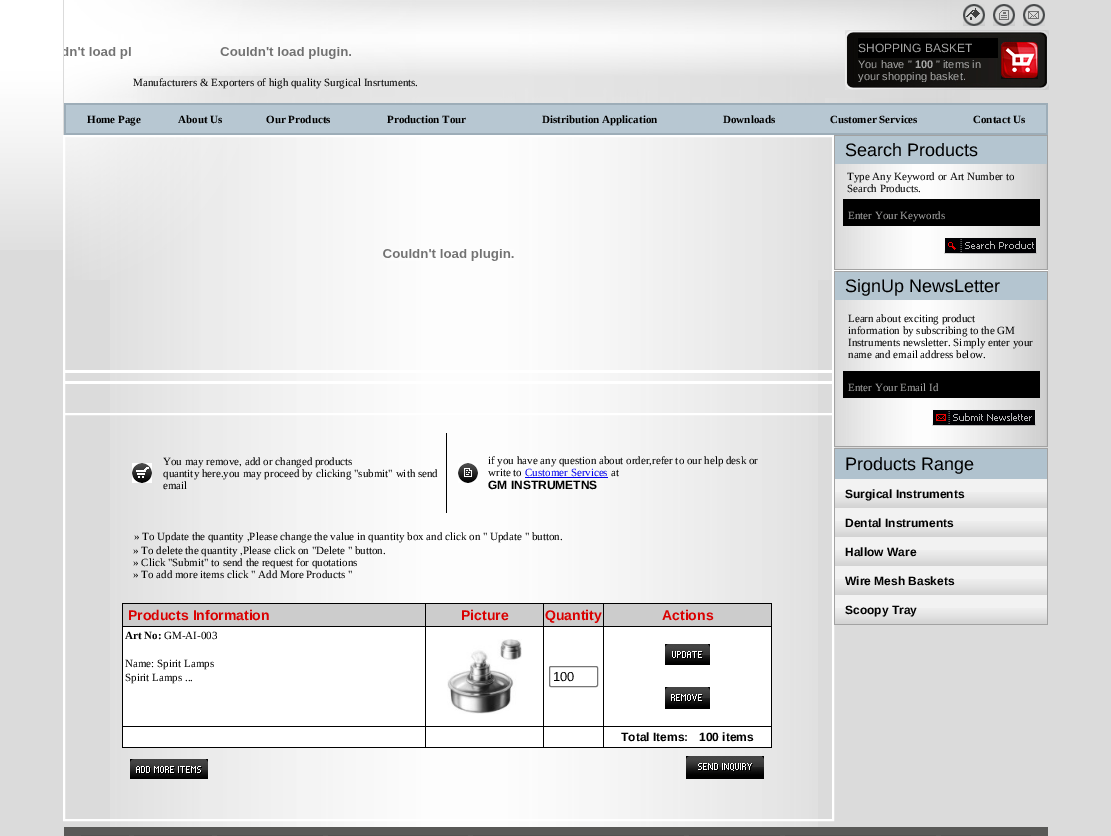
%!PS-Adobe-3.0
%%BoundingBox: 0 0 1111 836
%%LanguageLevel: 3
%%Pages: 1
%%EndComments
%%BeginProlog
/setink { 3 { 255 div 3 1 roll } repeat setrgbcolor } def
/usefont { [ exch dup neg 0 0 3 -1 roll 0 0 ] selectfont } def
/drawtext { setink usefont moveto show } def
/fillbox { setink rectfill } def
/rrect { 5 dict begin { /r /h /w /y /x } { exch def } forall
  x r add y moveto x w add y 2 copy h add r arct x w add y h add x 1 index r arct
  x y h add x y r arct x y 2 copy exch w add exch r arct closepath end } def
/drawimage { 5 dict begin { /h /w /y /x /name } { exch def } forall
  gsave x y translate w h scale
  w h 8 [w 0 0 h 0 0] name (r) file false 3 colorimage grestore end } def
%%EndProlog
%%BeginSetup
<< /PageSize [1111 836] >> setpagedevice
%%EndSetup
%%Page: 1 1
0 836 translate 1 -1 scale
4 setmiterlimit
0 0 1111 836 219 219 219 fillbox
(assets/img1.rgb) 110 280 708 547 drawimage
(assets/img2.rgb) 0 0 63 250 drawimage
(assets/img3.rgb) 64 0 906 280 drawimage
(assets/img4.rgb) 64 47 67 12 drawimage
(assets/img5.rgb) 220 47 131 12 drawimage
(assets/img6.rgb) 133 76 692 27 drawimage
(Manufacturers & Exporters of high quality Surgical Insrtuments.) 133 86 /LiberationSerif-Regular 11 0 0 0 drawtext
(assets/img7.rgb) 963 4 22 22 drawimage
(assets/img8.rgb) 993 4 22 22 drawimage
(assets/img9.rgb) 1023 4 22 22 drawimage
(assets/img10.rgb) 845 30 204 8 drawimage
(assets/img11.rgb) 845 38 202 44 drawimage
858 38 140 20 0 0 0 fillbox
(SHOPPING BASKET) 858 52 /LiberationSans-Regular 12 166 166 165 drawtext
(You have ") 858 68 /LiberationSans-Regular 11 166 166 165 drawtext
(100) 915 68 /LiberationSans-Bold 11 166 166 165 drawtext
(" items in) 936 68 /LiberationSans-Regular 11 166 166 165 drawtext
(your shopping basket.) 858 80 /LiberationSans-Regular 11 166 166 165 drawtext
(assets/img12.rgb) 1001 42 37 37 drawimage
(assets/img13.rgb) 845 82 204 8 drawimage
64 103 984 2 157 173 184 fillbox
1046 103 2 32 157 173 184 fillbox
64 133 984 2 157 173 184 fillbox
64 103 2 32 157 173 184 fillbox
66 105 980 28 183 199 210 fillbox
(Home Page) 87 123 /LiberationSerif-Bold 11 0 0 0 drawtext
(About Us) 178 123 /LiberationSerif-Bold 11 0 0 0 drawtext
(Our Products) 266 123 /LiberationSerif-Bold 11 0 0 0 drawtext
(Production Tour) 387 123 /LiberationSerif-Bold 11 0 0 0 drawtext
(Distribution Application) 542 123 /LiberationSerif-Bold 11 0 0 0 drawtext
(Downloads) 723 123 /LiberationSerif-Bold 11 0 0 0 drawtext
(Customer Services) 830 123 /LiberationSerif-Bold 11 0 0 0 drawtext
(Contact Us) 973 123 /LiberationSerif-Bold 11 0 0 0 drawtext
255 255 255 setink
63.5 135.5 770 685 rectstroke
64.5 136.5 768 234 rectstroke
(assets/img14.rgb) 383 249 131 12 drawimage
64 372 769 1 255 255 255 fillbox
64.5 371.5 768 10 rectstroke
64 383 769 1 255 255 255 fillbox
64.5 382.5 768 31 rectstroke
64.5 414.5 768 405 rectstroke
(assets/img15.rgb) 132 463 20 20 drawimage
446 433 1 80 0 0 0 fillbox
(You may remove, add or changed products) 163 465 /LiberationSerif-Regular 11 0 0 0 drawtext
(quantity here.you may proceed by clicking "submit" with send) 163 477 /LiberationSerif-Regular 11 0 0 0 drawtext
(email) 163 489 /LiberationSerif-Regular 11 0 0 0 drawtext
(assets/img16.rgb) 458 463 20 20 drawimage
(if you have any question about order,refer to our help desk or) 488 464 /LiberationSerif-Regular 11 0 0 0 drawtext
(write to) 488 476 /LiberationSerif-Regular 11 0 0 0 drawtext
(Customer Services) 525 476 /LiberationSerif-Regular 11 0 0 238 drawtext
525 477 83 1 0 0 238 fillbox
(at) 611 476 /LiberationSerif-Regular 11 0 0 0 drawtext
(GM INSTRUMETNS) 488 489 /LiberationSans-Bold 12 0 0 0 drawtext
(» To Update the quantity ,Please change the value in quantity box and click on " Update " button.) 134 540 /LiberationSerif-Regular 11 0 0 0 drawtext
(» To delete the quantity ,Please click on "Delete " button.) 133 554 /LiberationSerif-Regular 11 0 0 0 drawtext
(» Click "Submit" to send the request for quotations) 133 566 /LiberationSerif-Regular 11 0 0 0 drawtext
(» To add more items click " Add More Products ") 133 578 /LiberationSerif-Regular 11 0 0 0 drawtext
122 603 650 145 0 0 0 fillbox
123 604 302 22 204 204 204 fillbox
(Products Information) 128 620 /LiberationSans-Bold 14 218 0 0 drawtext
426 604 117 22 204 204 204 fillbox
(Picture) 461 620 /LiberationSans-Bold 14 218 0 0 drawtext
544 604 59 22 204 204 204 fillbox
(Quantity) 545 620 /LiberationSans-Bold 14 218 0 0 drawtext
604 604 167 22 204 204 204 fillbox
(Actions) 662 620 /LiberationSans-Bold 14 218 0 0 drawtext
123 627 302 99 255 255 255 fillbox
(Art No:) 125 639 /LiberationSerif-Bold 11 0 0 0 drawtext
(GM-AI-003) 164 639 /LiberationSerif-Regular 11 0 0 0 drawtext
(Name: Spirit Lamps) 125 667 /LiberationSerif-Regular 11 0 0 0 drawtext
(Spirit Lamps ...) 125 681 /LiberationSerif-Regular 11 0 0 0 drawtext
426 627 117 99 255 255 255 fillbox
(assets/img17.rgb) 447 639 75 75 drawimage
544 627 59 99 255 255 255 fillbox
118 118 118 setink
549.5 666.5 48 20 1.5 rrect stroke
(100) 553 681 /LiberationSans-Regular 13 0 0 0 drawtext
604 627 167 99 255 255 255 fillbox
(assets/img18.rgb) 665 644 45 21 drawimage
(assets/img19.rgb) 665 687 45 22 drawimage
123 727 302 20 255 255 255 fillbox
426 727 117 20 255 255 255 fillbox
544 727 59 20 255 255 255 fillbox
604 727 167 20 255 255 255 fillbox
(Total Items:) 621 741 /LiberationSans-Bold 12 0 0 0 drawtext
(100 items) 699 741 /LiberationSans-Bold 12 0 0 0 drawtext
(assets/img20.rgb) 130 759 78 20 drawimage
(assets/img21.rgb) 686 756 78 23 drawimage
834 135 214 1 162 162 162 fillbox
1047 135 1 135 162 162 162 fillbox
834 269 214 1 162 162 162 fillbox
834 135 1 135 162 162 162 fillbox
835 136 212 28 180 197 208 fillbox
(Search Products) 845 156 /LiberationSans-Regular 18 0 0 0 drawtext
(assets/img22.rgb) 835 164 212 105 drawimage
(Type Any Keyword or Art Number to) 847 180 /LiberationSerif-Regular 11 0 0 0 drawtext
(Search Products.) 847 192 /LiberationSerif-Regular 11 0 0 0 drawtext
843 199 197 27 0 0 0 fillbox
(Enter Your Keywords) 848 219 /LiberationSerif-Regular 11 166 166 165 drawtext
(assets/img23.rgb) 944 237 93 17 drawimage
834 270 214 1 255 255 255 fillbox
834 271 214 1 162 162 162 fillbox
1047 271 1 176 162 162 162 fillbox
834 446 214 1 162 162 162 fillbox
834 271 1 176 162 162 162 fillbox
835 272 212 28 180 197 208 fillbox
(SignUp NewsLetter) 845 292 /LiberationSans-Regular 18 0 0 0 drawtext
(assets/img24.rgb) 835 300 212 146 drawimage
(Learn about exciting product) 848 322 /LiberationSerif-Regular 11 0 0 0 drawtext
(information by subscribing to the GM) 848 334 /LiberationSerif-Regular 11 0 0 0 drawtext
(Instruments newsletter. Simply enter your) 848 346 /LiberationSerif-Regular 11 0 0 0 drawtext
(name and email address below.) 848 358 /LiberationSerif-Regular 11 0 0 0 drawtext
843 371 197 27 0 0 0 fillbox
(Enter Your Email Id) 848 391 /LiberationSerif-Regular 11 166 166 165 drawtext
(assets/img25.rgb) 932 409 104 17 drawimage
834 448 214 1 162 162 162 fillbox
1047 448 1 177 162 162 162 fillbox
834 624 214 1 162 162 162 fillbox
834 448 1 177 162 162 162 fillbox
835 449 212 30 176 194 206 fillbox
(Products Range) 845 470 /LiberationSans-Regular 18 0 0 0 drawtext
835 479 212 13 242 242 242 fillbox
(assets/img26.rgb) 835 492 212 16 drawimage
(Surgical Instruments) 845 498 /LiberationSans-Bold 12 0 0 0 drawtext
835 508 212 13 242 242 242 fillbox
(assets/img26.rgb) 835 521 212 16 drawimage
(Dental Instruments) 845 527 /LiberationSans-Bold 12 0 0 0 drawtext
835 537 212 13 242 242 242 fillbox
(assets/img26.rgb) 835 550 212 16 drawimage
(Hallow Ware) 845 556 /LiberationSans-Bold 12 0 0 0 drawtext
835 566 212 13 242 242 242 fillbox
(assets/img26.rgb) 835 579 212 16 drawimage
(Wire Mesh Baskets) 845 585 /LiberationSans-Bold 12 0 0 0 drawtext
835 595 212 13 242 242 242 fillbox
(assets/img26.rgb) 835 608 212 16 drawimage
(Scoopy Tray) 845 614 /LiberationSans-Bold 12 0 0 0 drawtext
64 827 984 9 89 89 87 fillbox
81 835 48 1 82 82 80 fillbox
134 835 78 1 82 82 80 fillbox
217 835 106 1 82 82 80 fillbox
328 835 140 1 82 82 80 fillbox
473 835 211 1 82 82 80 fillbox
689 835 91 1 82 82 80 fillbox
785 835 151 1 82 82 80 fillbox
941 835 90 1 82 82 80 fillbox
showpage
%%EOF
